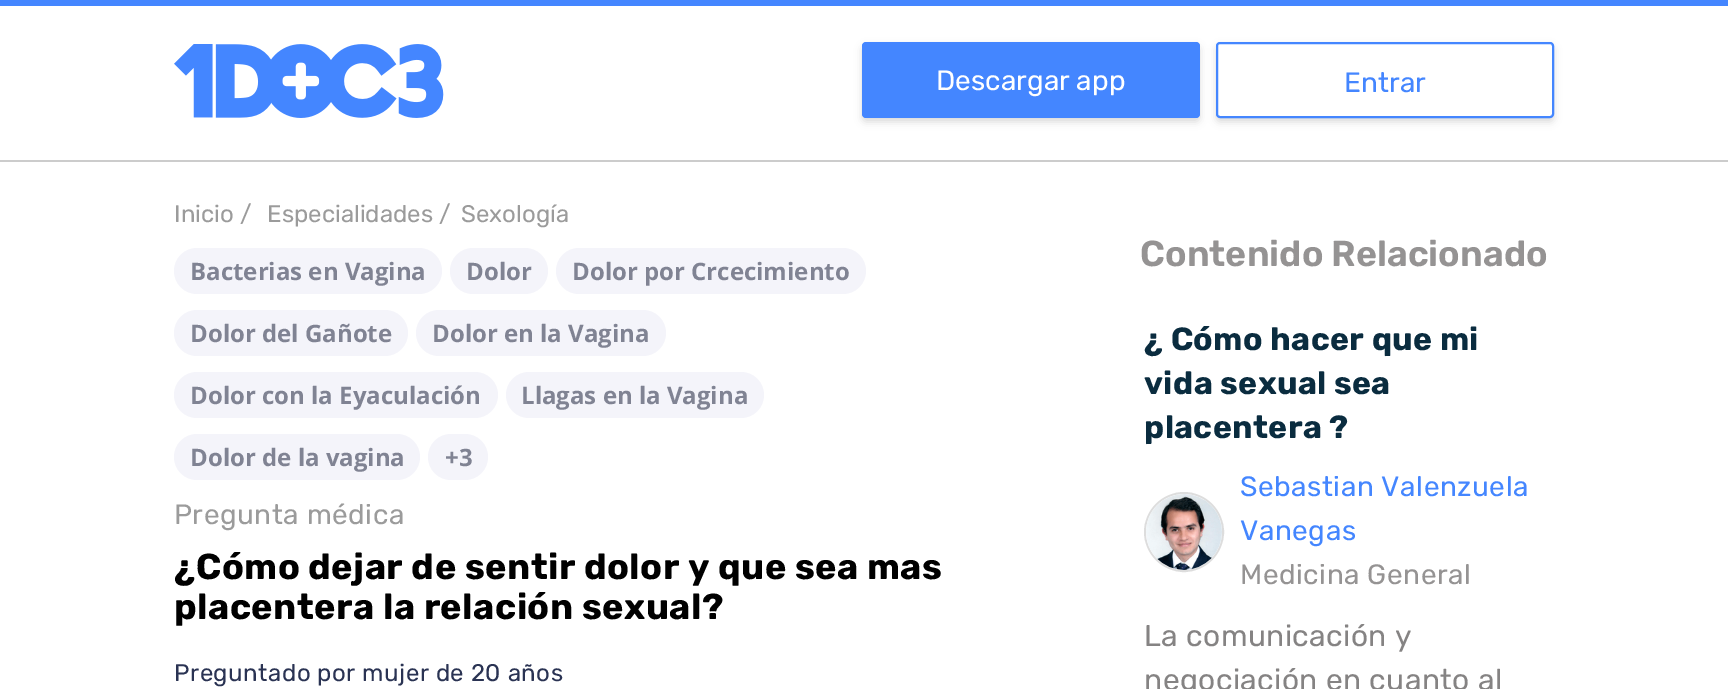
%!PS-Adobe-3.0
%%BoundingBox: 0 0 1728 689
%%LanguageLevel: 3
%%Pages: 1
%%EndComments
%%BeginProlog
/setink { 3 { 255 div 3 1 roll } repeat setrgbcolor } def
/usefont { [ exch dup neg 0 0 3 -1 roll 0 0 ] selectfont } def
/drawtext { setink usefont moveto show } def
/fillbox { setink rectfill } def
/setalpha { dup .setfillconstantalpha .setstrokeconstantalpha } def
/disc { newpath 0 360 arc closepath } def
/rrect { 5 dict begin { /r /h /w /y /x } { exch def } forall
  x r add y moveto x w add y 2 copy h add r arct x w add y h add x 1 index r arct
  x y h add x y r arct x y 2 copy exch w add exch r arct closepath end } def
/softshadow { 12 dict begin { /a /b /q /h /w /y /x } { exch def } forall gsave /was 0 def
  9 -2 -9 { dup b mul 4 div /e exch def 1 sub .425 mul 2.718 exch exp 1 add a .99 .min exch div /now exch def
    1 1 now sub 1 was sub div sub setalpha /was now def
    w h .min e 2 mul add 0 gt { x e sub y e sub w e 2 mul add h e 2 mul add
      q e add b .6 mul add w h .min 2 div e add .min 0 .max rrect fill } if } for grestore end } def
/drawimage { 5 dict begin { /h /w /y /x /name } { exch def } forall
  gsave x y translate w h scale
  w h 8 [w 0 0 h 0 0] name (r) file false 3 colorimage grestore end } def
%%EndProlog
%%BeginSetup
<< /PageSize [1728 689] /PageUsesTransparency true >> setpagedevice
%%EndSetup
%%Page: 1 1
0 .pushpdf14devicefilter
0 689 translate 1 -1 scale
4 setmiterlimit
0 0 1728 689 255 255 255 fillbox
0 160 1728 2 204 204 204 fillbox
0 0 1728 6 68 134 255 fillbox
(assets/img1.rgb) 174 44 270 74 drawimage
202 202 202 setink
862 46 338 76 4 4 0.7 softshadow
68 134 255 setink
862 42 338 76 4 rrect fill
(Descargar app) 936 90 /Rubik-Regular 28 255 255 255 drawtext
202 202 202 setink
1216 46 338 76 4 4 0.7 softshadow
255 255 255 setink
1217 43 336 74 3 rrect gsave fill grestore
68 134 255 setink
2 setlinewidth
stroke
(Entrar) 1344 92 /Rubik-Regular 28 68 134 255 drawtext
(Inicio /) 174 222 /Rubik-Regular 24 155 155 155 drawtext
(Especialidades /) 267 222 /Rubik-Regular 24 155 155 155 drawtext
(Sexología) 461 222 /Rubik-Regular 24 155 155 155 drawtext
244 244 250 setink
174 248 268 46 23 rrect fill
(Bacterias en Vagina) 190 280 /OpenSans-Bold 24 128 131 147 drawtext
244 244 250 setink
450 248 98 46 23 rrect fill
(Dolor) 466 280 /OpenSans-Bold 24 128 131 147 drawtext
244 244 250 setink
556 248 310 46 23 rrect fill
(Dolor por Crcecimiento) 572 280 /OpenSans-Bold 24 128 131 147 drawtext
244 244 250 setink
174 310 234 46 23 rrect fill
(Dolor del Gañote) 190 342 /OpenSans-Bold 24 128 131 147 drawtext
244 244 250 setink
416 310 250 46 23 rrect fill
(Dolor en la Vagina) 432 342 /OpenSans-Bold 24 128 131 147 drawtext
244 244 250 setink
174 372 324 46 23 rrect fill
(Dolor con la Eyaculación) 190 404 /OpenSans-Bold 24 128 131 147 drawtext
244 244 250 setink
506 372 258 46 23 rrect fill
(Llagas en la Vagina) 521 404 /OpenSans-Bold 24 128 131 147 drawtext
244 244 250 setink
174 434 246 46 23 rrect fill
(Dolor de la vagina) 190 466 /OpenSans-Bold 24 128 131 147 drawtext
244 244 250 setink
428 434 60 46 23 rrect fill
(+3) 445 466 /OpenSans-Bold 24 128 131 147 drawtext
/Rubik-Regular 28 usefont
155 155 155 setink
174 524 moveto 0.5 0 (Pregunta médica) ashow
/Rubik-Bold 36 usefont
0 0 0 setink
174 579 moveto 0.5 0 (¿Cómo dejar de sentir dolor y que sea mas) ashow
174 619 moveto 0.5 0 (placentera la relación sexual?) ashow
/Rubik-Regular 24 usefont
42 51 83 setink
174 681 moveto 0.5 0 (Preguntado por mujer de 20 años) ashow
(Contenido Relacionado) 1140 266 /Rubik-SemiBold 36 149 147 147 drawtext
/Rubik-Bold 32 usefont
10 44 63 setink
1144 350 moveto 0.4 0 (¿ Cómo hacer que mi) ashow
1144 394 moveto 0.4 0 (vida sexual sea) ashow
1144 438 moveto 0.4 0 (placentera ?) ashow
221 221 221 setink
1184 532 39 disc stroke
(assets/img2.rgb) 1146 494 76 76 drawimage
/Rubik-Regular 28 usefont
68 134 255 setink
1240 496 moveto 0.5 0 (Sebastian Valenzuela) ashow
1240 540 moveto 0.5 0 (Vanegas) ashow
149 147 147 setink
1240 584 moveto 0.5 0 (Medicina General) ashow
/Rubik-Regular 30 usefont
133 131 131 setink
1144 646 moveto 0.4 0 (La comunicación y) ashow
1144 690 moveto 0.4 0 (negociación en cuanto al) ashow
.poppdf14devicefilter showpage
%%EOF
